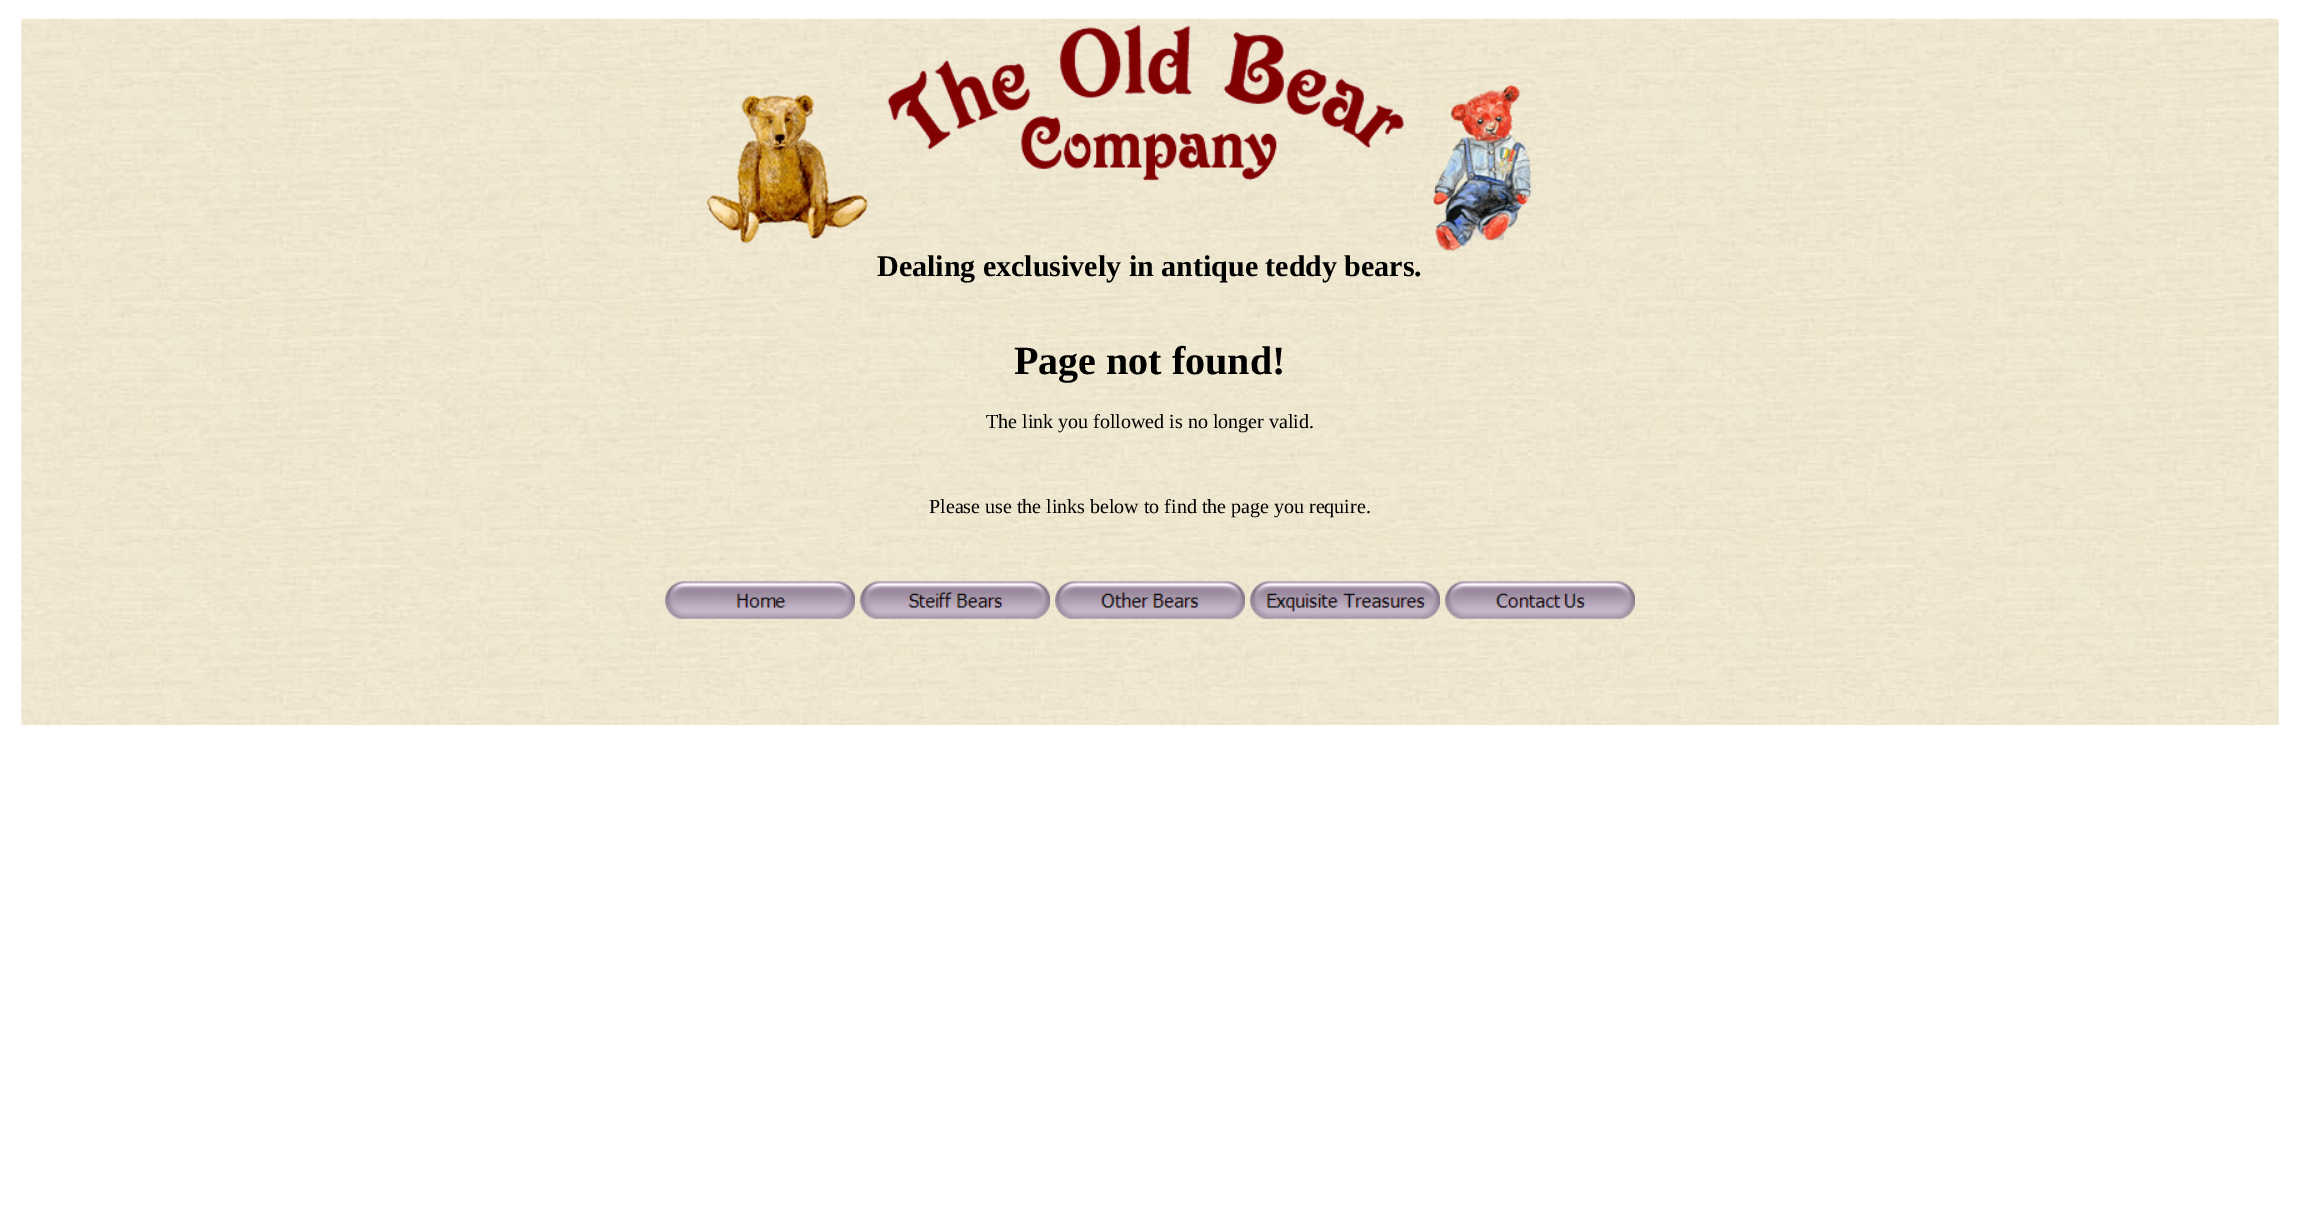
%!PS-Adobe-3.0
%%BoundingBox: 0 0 2299 1229
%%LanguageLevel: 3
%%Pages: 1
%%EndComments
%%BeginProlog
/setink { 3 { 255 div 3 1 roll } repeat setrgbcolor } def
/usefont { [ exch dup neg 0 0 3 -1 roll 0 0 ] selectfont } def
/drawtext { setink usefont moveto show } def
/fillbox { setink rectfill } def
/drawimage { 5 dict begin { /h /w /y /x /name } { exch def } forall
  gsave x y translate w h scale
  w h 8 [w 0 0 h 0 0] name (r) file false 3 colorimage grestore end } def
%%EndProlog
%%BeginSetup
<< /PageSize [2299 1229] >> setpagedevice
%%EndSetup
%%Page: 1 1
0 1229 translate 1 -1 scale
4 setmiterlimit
0 0 2299 1229 255 255 255 fillbox
(assets/img1.rgb) 21 18 2258 707 drawimage
(assets/img2.rgb) 705 94 164 150 drawimage
(assets/img3.rgb) 1427 84 105 168 drawimage
(assets/img4.rgb) 887 25 517 156 drawimage
(Dealing exclusively in antique teddy bears.) 877 276 /LiberationSerif-Bold 30 0 0 0 drawtext
(Page not found!) 1014 374 /LiberationSerif-Bold 40 0 0 0 drawtext
(The link you followed is no longer valid.) 986 428 /LiberationSerif-Regular 20 0 0 0 drawtext
(Please use the links below to find the page you require.) 929 513 /LiberationSerif-Regular 20 0 0 0 drawtext
(assets/img5.rgb) 665 581 190 38 drawimage
(assets/img6.rgb) 860 581 190 38 drawimage
(assets/img7.rgb) 1055 581 190 38 drawimage
(assets/img8.rgb) 1250 581 190 38 drawimage
(assets/img9.rgb) 1445 581 190 38 drawimage
showpage
%%EOF
